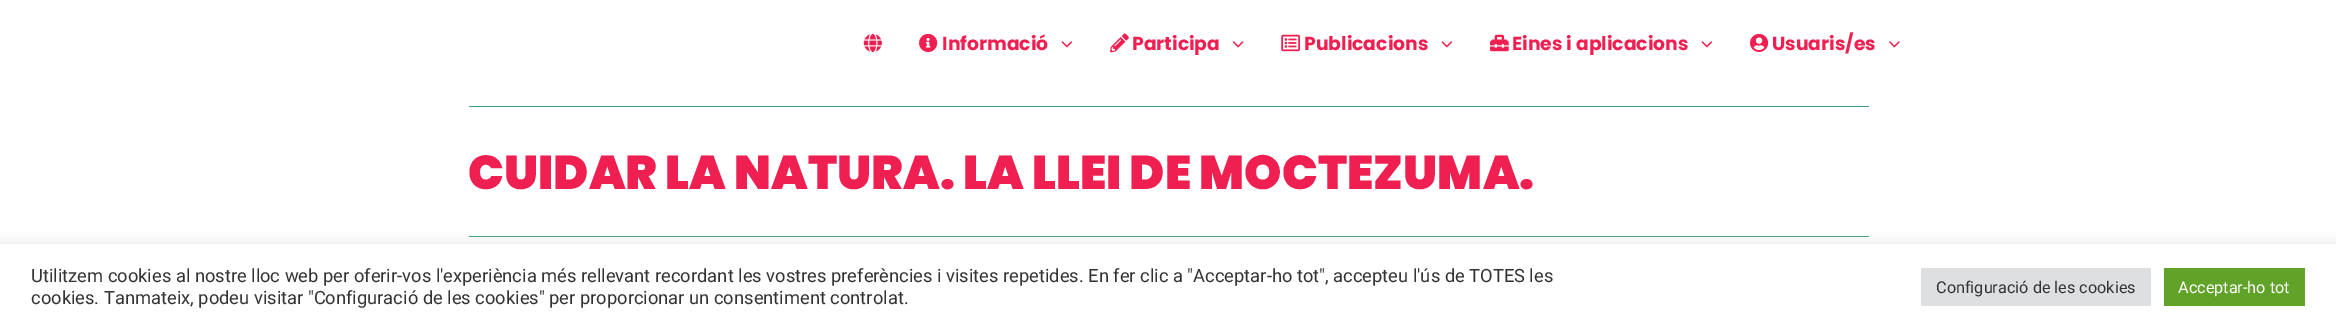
%!PS-Adobe-3.0
%%BoundingBox: 0 0 2336 329
%%LanguageLevel: 3
%%Pages: 1
%%EndComments
%%BeginProlog
/setink { 3 { 255 div 3 1 roll } repeat setrgbcolor } def
/usefont { [ exch dup neg 0 0 3 -1 roll 0 0 ] selectfont } def
/drawtext { setink usefont moveto show } def
/fillbox { setink rectfill } def
/setalpha { dup .setfillconstantalpha .setstrokeconstantalpha } def
/rrect { 5 dict begin { /r /h /w /y /x } { exch def } forall
  x r add y moveto x w add y 2 copy h add r arct x w add y h add x 1 index r arct
  x y h add x y r arct x y 2 copy exch w add exch r arct closepath end } def
/softshadow { 12 dict begin { /a /b /q /h /w /y /x } { exch def } forall gsave /was 0 def
  9 -2 -9 { dup b mul 4 div /e exch def 1 sub .425 mul 2.718 exch exp 1 add a .99 .min exch div /now exch def
    1 1 now sub 1 was sub div sub setalpha /was now def
    w h .min e 2 mul add 0 gt { x e sub y e sub w e 2 mul add h e 2 mul add
      q e add b .6 mul add w h .min 2 div e add .min 0 .max rrect fill } if } for grestore end } def
/drawimage { 5 dict begin { /h /w /y /x /name } { exch def } forall
  gsave x y translate w h scale
  w h 8 [w 0 0 h 0 0] name (r) file false 3 colorimage grestore end } def
%%EndProlog
%%BeginSetup
<< /PageSize [2336 329] /PageUsesTransparency true >> setpagedevice
%%EndSetup
%%Page: 1 1
0 .pushpdf14devicefilter
0 329 translate 1 -1 scale
4 setmiterlimit
0 0 2336 329 255 255 255 fillbox
(assets/img1.rgb) 863 33 19 19 drawimage
(assets/img2.rgb) 919 33 19 19 drawimage
(Informació) 942 50 /Poppins-Bold 18.75 239 32 81 drawtext
(assets/img3.rgb) 1061 41 12 7 drawimage
(assets/img4.rgb) 1110 33 19 20 drawimage
(Participa) 1132 50 /Poppins-Bold 18.75 239 32 81 drawtext
(assets/img5.rgb) 1233 41 11 7 drawimage
(assets/img6.rgb) 1281 34 19 18 drawimage
(Publicacions) 1304 50 /Poppins-Bold 18.75 239 32 81 drawtext
(assets/img3.rgb) 1441 41 12 7 drawimage
(assets/img7.rgb) 1490 34 19 18 drawimage
(Eines i aplicacions) 1512 50 /Poppins-Bold 18.75 239 32 81 drawtext
(assets/img3.rgb) 1701 41 12 7 drawimage
(assets/img8.rgb) 1750 33 19 19 drawimage
(Usuaris/es) 1772 50 /Poppins-Bold 18.75 239 32 81 drawtext
(assets/img9.rgb) 1889 41 11 7 drawimage
469 106 1400 1 66 161 126 fillbox
(CUIDAR LA NATURA. LA LLEI DE MOCTEZUMA.) 468 189 /Poppins-Black 47.5 239 32 81 drawtext
469 236 1400 1 66 161 126 fillbox
172 171 171 setink
0 243 2336 86 0 6 0.3 softshadow
0 244 2336 85 255 255 255 fillbox
(Utilitzem cookies al nostre lloc web per oferir-vos l'experiència més rellevant recordant les vostres preferències i visites repetides. En fer clic a "Acceptar-ho tot", accepteu l'ús de TOTES les) 31 282 /Roboto-Regular 18.33 51 51 51 drawtext
(cookies. Tanmateix, podeu visitar "Configuració de les cookies" per proporcionar un consentiment controlat.) 31 304 /Roboto-Regular 18.33 51 51 51 drawtext
1921 268 230 38 222 223 224 fillbox
(Configuració de les cookies) 1936 293 /Roboto-Regular 16.25 51 51 51 drawtext
2164 268 141 38 97 162 41 fillbox
(Acceptar-ho tot) 2178 293 /Roboto-Regular 16.25 255 255 255 drawtext
.poppdf14devicefilter showpage
%%EOF
